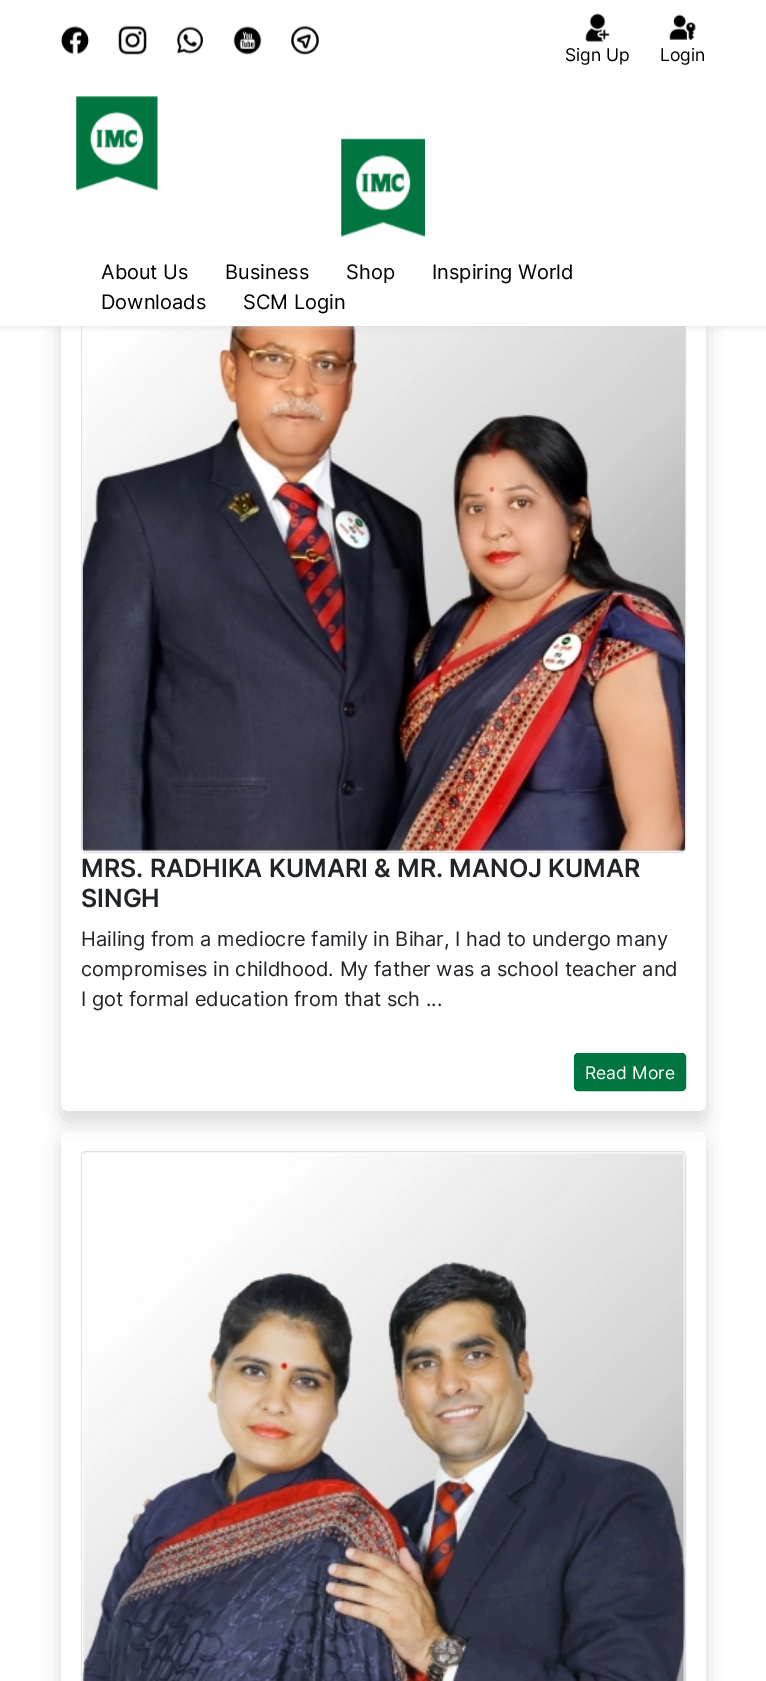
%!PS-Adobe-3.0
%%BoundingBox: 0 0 766 1681
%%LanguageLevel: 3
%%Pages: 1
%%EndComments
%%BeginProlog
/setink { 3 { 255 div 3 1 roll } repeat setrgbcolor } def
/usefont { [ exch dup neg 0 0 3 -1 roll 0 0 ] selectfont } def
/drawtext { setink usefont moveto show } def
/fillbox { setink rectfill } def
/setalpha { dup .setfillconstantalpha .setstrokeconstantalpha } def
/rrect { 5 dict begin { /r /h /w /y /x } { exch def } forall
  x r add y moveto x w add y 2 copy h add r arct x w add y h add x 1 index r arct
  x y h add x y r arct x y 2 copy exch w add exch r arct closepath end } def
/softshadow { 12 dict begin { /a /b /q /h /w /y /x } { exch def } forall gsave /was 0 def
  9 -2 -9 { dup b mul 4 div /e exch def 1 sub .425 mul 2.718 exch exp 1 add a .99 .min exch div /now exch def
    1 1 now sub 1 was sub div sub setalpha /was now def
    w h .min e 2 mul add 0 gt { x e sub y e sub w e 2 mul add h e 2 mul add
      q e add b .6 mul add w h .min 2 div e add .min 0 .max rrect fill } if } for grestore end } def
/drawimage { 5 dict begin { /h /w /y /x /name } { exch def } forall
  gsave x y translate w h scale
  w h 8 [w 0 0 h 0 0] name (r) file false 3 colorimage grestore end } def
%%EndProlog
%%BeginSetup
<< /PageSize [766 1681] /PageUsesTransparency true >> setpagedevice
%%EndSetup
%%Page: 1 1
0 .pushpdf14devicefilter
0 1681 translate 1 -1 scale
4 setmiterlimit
0 0 766 1681 255 255 255 fillbox
gsave
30 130 moveto 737 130 lineto 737 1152 lineto 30 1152 lineto closepath 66 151 moveto 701 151 lineto 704 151 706 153 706 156 curveto 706 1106 lineto 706 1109 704 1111 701 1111 curveto 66 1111 lineto 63 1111 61 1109 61 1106 curveto 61 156 lineto 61 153 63 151 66 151 curveto closepath eoclip newpath
0 0 0 setink
61 161 645 960 5 10 0.15 softshadow
grestore
223 223 223 setink
81.5 171.5 604 681 4.5 rrect stroke
(assets/img10.rgb) 82 326 603 526 drawimage
221 216 216 setink
0 0 766 326 0 4 1 softshadow
0 0 766 326 255 255 255 fillbox
(assets/img1.rgb) 61 25 28 30 drawimage
(assets/img2.rgb) 118 25 29 30 drawimage
(assets/img3.rgb) 177 26 26 28 drawimage
(assets/img4.rgb) 233 26 29 29 drawimage
(assets/img5.rgb) 291 25 28 30 drawimage
(assets/img6.rgb) 585 13 25 29 drawimage
(Sign Up) 565 61 /Inter-Regular 17.5 0 0 0 drawtext
(assets/img7.rgb) 669 14 27 27 drawimage
(Login) 660 61 /Inter-Regular 17.5 0 0 0 drawtext
(assets/img8.rgb) 76 96 82 95 drawimage
(assets/img9.rgb) 341 138 84 100 drawimage
(About Us) 101 279 /Inter-Regular 20 0 0 0 drawtext
(Business) 225 279 /Inter-Regular 20 0 0 0 drawtext
(Shop) 346 279 /Inter-Regular 20 0 0 0 drawtext
(Inspiring World) 432 279 /Inter-Regular 20 0 0 0 drawtext
(Downloads) 101 309 /Inter-Regular 20 0 0 0 drawtext
(SCM Login) 243 309 /Inter-Regular 20 0 0 0 drawtext
(MRS. RADHIKA KUMARI & MR. MANOJ KUMAR) 81 877 /Inter-SemiBold 25 33 37 41 drawtext
(SINGH) 81 907 /Inter-SemiBold 25 33 37 41 drawtext
(Hailing from a mediocre family in Bihar, I had to undergo many) 81 946 /Inter-Regular 20 33 37 41 drawtext
(compromises in childhood. My father was a school teacher and) 81 976 /Inter-Regular 20 33 37 41 drawtext
(I got formal education from that sch ...) 81 1006 /Inter-Regular 20 33 37 41 drawtext
0 117 64 setink
574.5 1053.5 111 37 3.5 rrect gsave fill grestore
stroke
(Read More) 585 1079 /Inter-Regular 17.5 255 255 255 drawtext
gsave
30 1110 moveto 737 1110 lineto 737 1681 lineto 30 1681 lineto closepath 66 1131 moveto 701 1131 lineto 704 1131 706 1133 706 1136 curveto 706 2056 lineto 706 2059 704 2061 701 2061 curveto 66 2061 lineto 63 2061 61 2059 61 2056 curveto 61 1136 lineto 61 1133 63 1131 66 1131 curveto closepath eoclip newpath
0 0 0 setink
61 1141 645 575 5 10 0.15 softshadow
grestore
223 223 223 setink
81.5 1151.5 604 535 4.5 rrect stroke
(assets/img11.rgb) 82 1153 603 528 drawimage
.poppdf14devicefilter showpage
%%EOF
